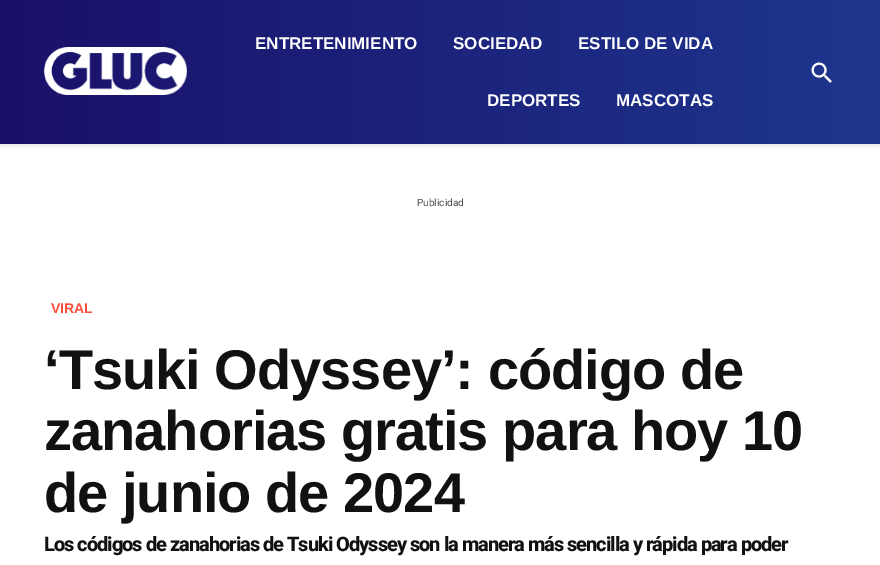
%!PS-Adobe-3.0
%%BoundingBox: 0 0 880 565
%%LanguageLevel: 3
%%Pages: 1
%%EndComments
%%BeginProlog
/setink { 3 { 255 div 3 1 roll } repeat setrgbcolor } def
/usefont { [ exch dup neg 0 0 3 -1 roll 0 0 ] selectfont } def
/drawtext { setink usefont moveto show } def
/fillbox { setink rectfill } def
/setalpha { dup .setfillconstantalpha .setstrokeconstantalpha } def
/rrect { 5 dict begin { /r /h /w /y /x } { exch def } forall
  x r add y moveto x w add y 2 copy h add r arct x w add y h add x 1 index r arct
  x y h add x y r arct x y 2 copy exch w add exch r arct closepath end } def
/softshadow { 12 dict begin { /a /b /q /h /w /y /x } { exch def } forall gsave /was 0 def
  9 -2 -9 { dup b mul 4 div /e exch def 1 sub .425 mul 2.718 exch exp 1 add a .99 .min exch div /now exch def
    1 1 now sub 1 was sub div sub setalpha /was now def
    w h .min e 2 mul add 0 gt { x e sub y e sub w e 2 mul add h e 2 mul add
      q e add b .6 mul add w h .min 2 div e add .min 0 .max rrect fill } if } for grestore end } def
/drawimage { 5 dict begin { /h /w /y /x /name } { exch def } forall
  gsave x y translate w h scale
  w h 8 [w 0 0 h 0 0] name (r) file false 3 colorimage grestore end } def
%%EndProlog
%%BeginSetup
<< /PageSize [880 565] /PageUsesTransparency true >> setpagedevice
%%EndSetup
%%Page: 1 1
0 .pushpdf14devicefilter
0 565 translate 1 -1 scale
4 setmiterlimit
0 0 880 565 255 255 255 fillbox
0 0 0 setink
0 2 880 144 0 2.5 0.1 softshadow
gsave 0 0 moveto 880 0 lineto 880 144 lineto 0 144 lineto closepath clip newpath
<< /ShadingType 2 /ColorSpace /DeviceRGB /Coords [0 72 880 72] /Extend [true true] /Function << /FunctionType 2 /Domain [0 1] /C0 [0.102 0.063 0.412] /C1 [0.118 0.212 0.557] /N 1 >> >> shfill grestore
(assets/img1.rgb) 44 47 143 48 drawimage
(ENTRETENIMIENTO) 255 49 /LiberationSans-Bold 17 255 255 255 drawtext
(SOCIEDAD) 453 49 /LiberationSans-Bold 17 255 255 255 drawtext
(ESTILO DE VIDA) 578 49 /LiberationSans-Bold 17 255 255 255 drawtext
(DEPORTES) 487 106 /LiberationSans-Bold 17 255 255 255 drawtext
(MASCOTAS) 616 106 /LiberationSans-Bold 17 255 255 255 drawtext
(assets/img2.rgb) 811 62 21 21 drawimage
(Publicidad) 417 206 /Roboto-Regular 10 77 77 77 drawtext
(VIRAL) 51 313 /LiberationSans-Bold 14 255 76 59 drawtext
/LiberationSans-Bold 56 usefont
17 17 17 setink
44 389 moveto -1 0 (‘Tsuki Odyssey’: código de) ashow
44 450 moveto -1 0 (zanahorias gratis para hoy 10) ashow
44 512 moveto -1 0 (de junio de 2024) ashow
/Roboto-ExtraBold 20 usefont
44 551 moveto -1 0 (Los códigos de zanahorias de Tsuki Odyssey son la manera más sencilla y rápida para poder) ashow
.poppdf14devicefilter showpage
%%EOF
